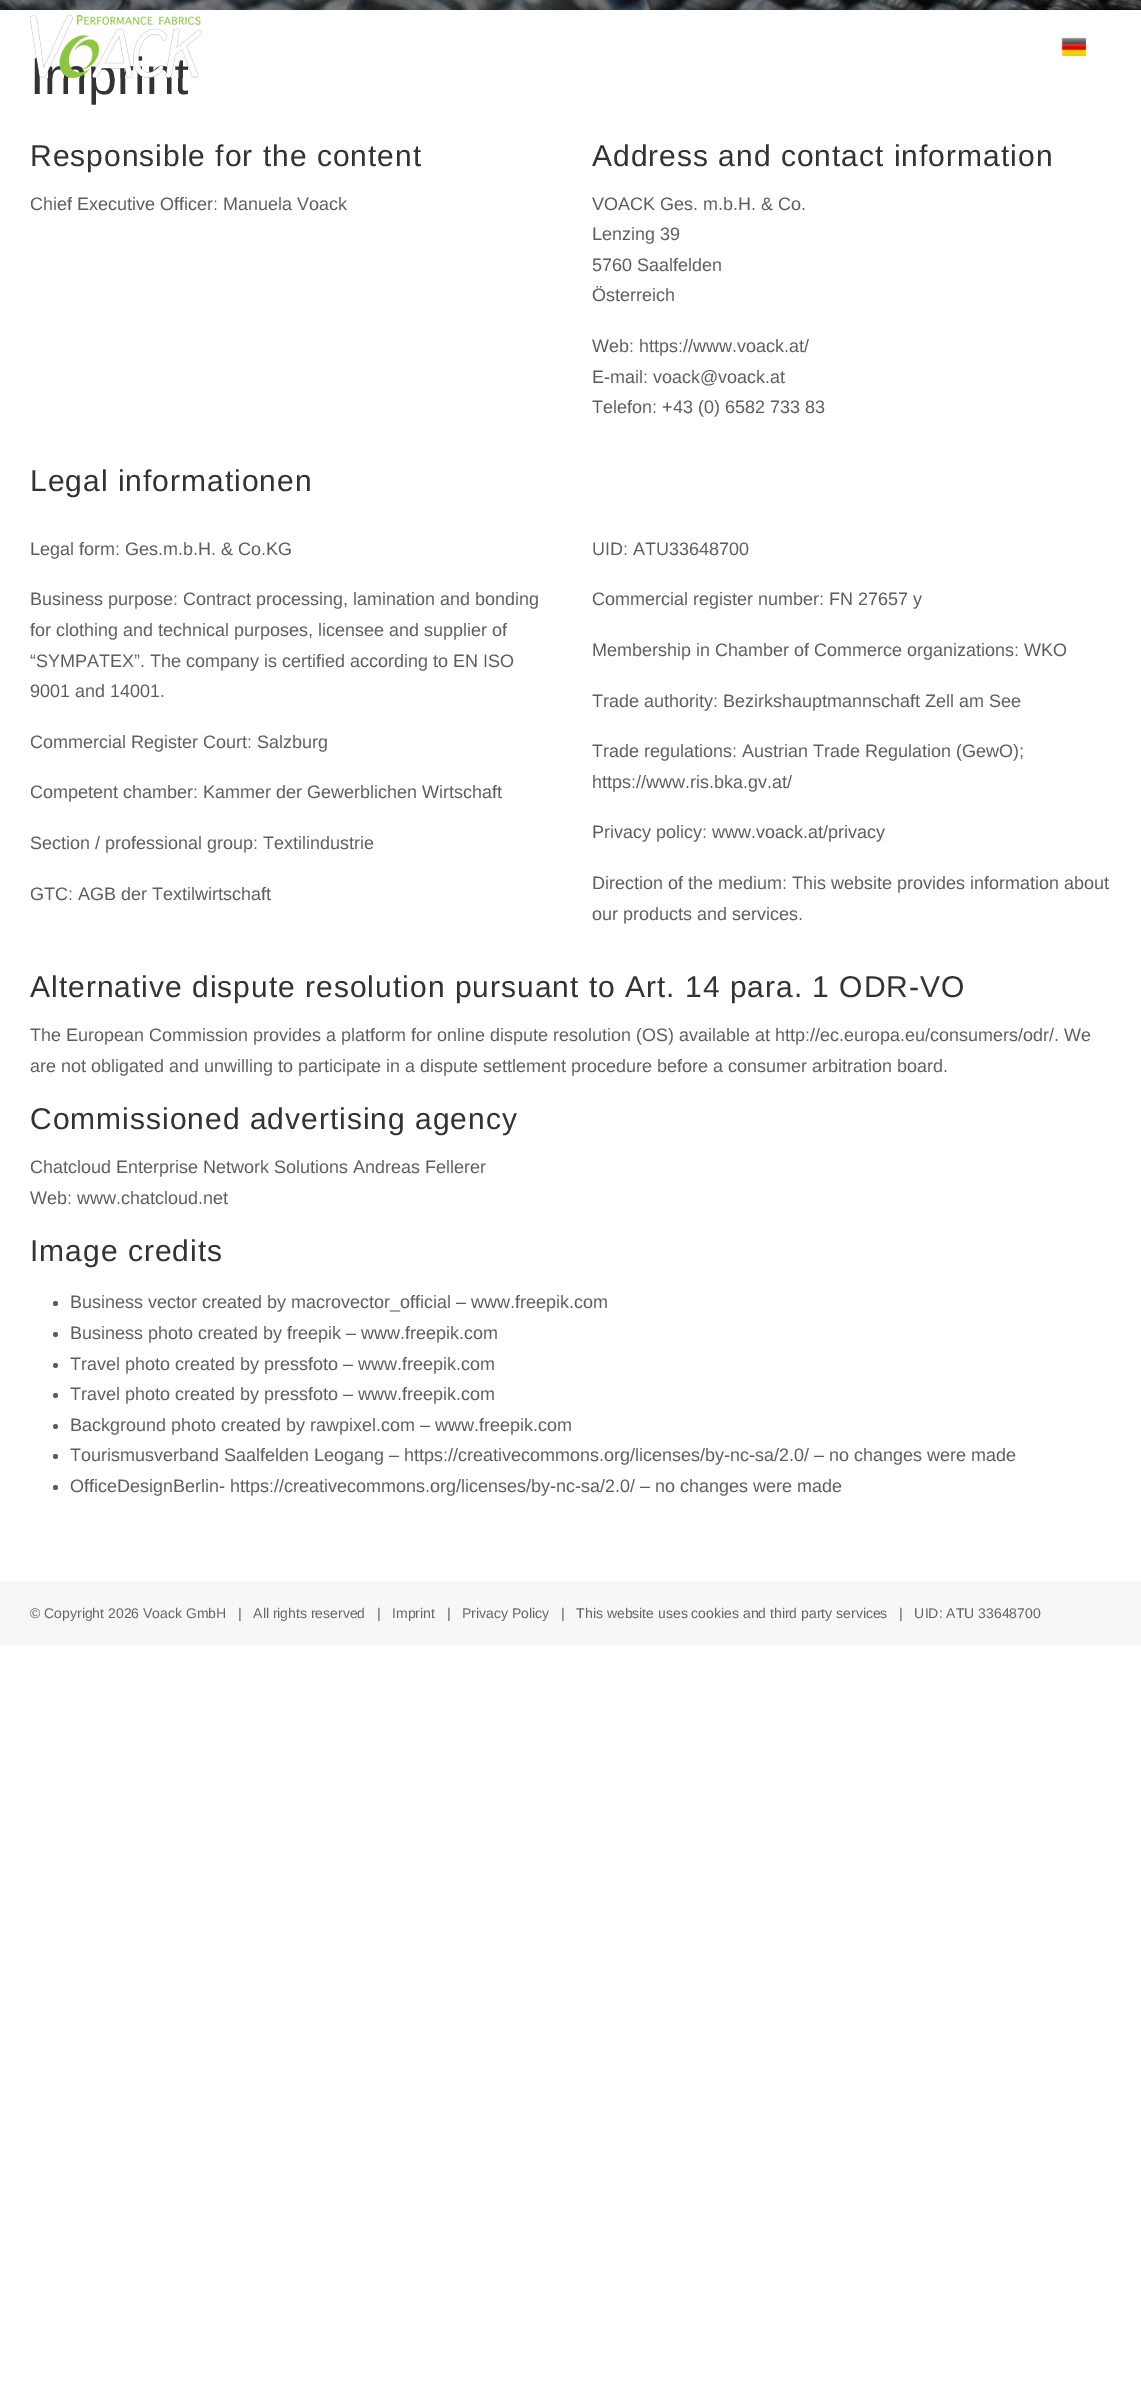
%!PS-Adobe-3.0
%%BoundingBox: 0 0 1141 2403
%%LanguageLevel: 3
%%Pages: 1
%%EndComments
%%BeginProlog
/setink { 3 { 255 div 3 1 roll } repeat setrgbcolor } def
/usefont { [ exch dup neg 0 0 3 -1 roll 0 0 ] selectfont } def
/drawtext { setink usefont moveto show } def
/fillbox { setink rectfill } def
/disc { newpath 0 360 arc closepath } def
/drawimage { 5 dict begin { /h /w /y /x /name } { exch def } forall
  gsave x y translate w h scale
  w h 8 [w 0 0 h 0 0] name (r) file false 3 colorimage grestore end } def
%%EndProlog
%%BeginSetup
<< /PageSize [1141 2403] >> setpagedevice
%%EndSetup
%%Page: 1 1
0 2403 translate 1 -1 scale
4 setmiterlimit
0 0 1141 2403 255 255 255 fillbox
(assets/img1.rgb) 0 0 1141 10 drawimage
(Imprint) 30 94 /LiberationSans-Regular 52 51 51 51 drawtext
(assets/img2.rgb) 30 15 172 63 drawimage
(assets/img3.rgb) 1061 37 25 19 drawimage
/LiberationSans-Regular 30 usefont
30 166 moveto 1 0 (Responsible for the content) ashow
(Chief Executive Officer: Manuela Voack) 30 210 /LiberationSans-Regular 18 94 94 94 drawtext
/LiberationSans-Regular 30 usefont
51 51 51 setink
592 166 moveto 1 0 (Address and contact information) ashow
(VOACK Ges. m.b.H. & Co.) 592 210 /LiberationSans-Regular 18 94 94 94 drawtext
(Lenzing 39) 592 240 /LiberationSans-Regular 18 94 94 94 drawtext
(5760 Saalfelden) 592 271 /LiberationSans-Regular 18 94 94 94 drawtext
(Österreich) 592 301 /LiberationSans-Regular 18 94 94 94 drawtext
(Web: https://www.voack.at/) 592 352 /LiberationSans-Regular 18 94 94 94 drawtext
(E-mail: voack@voack.at) 592 383 /LiberationSans-Regular 18 94 94 94 drawtext
(Telefon: +43 \(0\) 6582 733 83) 592 413 /LiberationSans-Regular 18 94 94 94 drawtext
/LiberationSans-Regular 30 usefont
51 51 51 setink
30 491 moveto 1 0 (Legal informationen) ashow
(Legal form: Ges.m.b.H. & Co.KG) 30 555 /LiberationSans-Regular 18 94 94 94 drawtext
(Business purpose: Contract processing, lamination and bonding) 30 605 /LiberationSans-Regular 18 94 94 94 drawtext
(for clothing and technical purposes, licensee and supplier of) 30 636 /LiberationSans-Regular 18 94 94 94 drawtext
(“SYMPATEX”. The company is certified according to EN ISO) 30 667 /LiberationSans-Regular 18 94 94 94 drawtext
(9001 and 14001.) 30 697 /LiberationSans-Regular 18 94 94 94 drawtext
(Commercial Register Court: Salzburg) 30 748 /LiberationSans-Regular 18 94 94 94 drawtext
(Competent chamber: Kammer der Gewerblichen Wirtschaft) 30 798 /LiberationSans-Regular 18 94 94 94 drawtext
(Section / professional group: Textilindustrie) 30 849 /LiberationSans-Regular 18 94 94 94 drawtext
(GTC: AGB der Textilwirtschaft) 30 900 /LiberationSans-Regular 18 94 94 94 drawtext
(UID: ATU33648700) 592 555 /LiberationSans-Regular 18 94 94 94 drawtext
(Commercial register number: FN 27657 y) 592 605 /LiberationSans-Regular 18 94 94 94 drawtext
(Membership in Chamber of Commerce organizations: WKO) 592 656 /LiberationSans-Regular 18 94 94 94 drawtext
(Trade authority: Bezirkshauptmannschaft Zell am See) 592 707 /LiberationSans-Regular 18 94 94 94 drawtext
(Trade regulations: Austrian Trade Regulation \(GewO\);) 592 757 /LiberationSans-Regular 18 94 94 94 drawtext
(https://www.ris.bka.gv.at/) 592 788 /LiberationSans-Regular 18 94 94 94 drawtext
(Privacy policy: www.voack.at/privacy) 592 838 /LiberationSans-Regular 18 94 94 94 drawtext
(Direction of the medium: This website provides information about) 592 889 /LiberationSans-Regular 18 94 94 94 drawtext
(our products and services.) 592 920 /LiberationSans-Regular 18 94 94 94 drawtext
/LiberationSans-Regular 30 usefont
51 51 51 setink
30 997 moveto 1 0 (Alternative dispute resolution pursuant to Art. 14 para. 1 ODR-VO) ashow
(The European Commission provides a platform for online dispute resolution \(OS\) available at http://ec.europa.eu/consumers/odr/. We) 30 1041 /LiberationSans-Regular 18 94 94 94 drawtext
(are not obligated and unwilling to participate in a dispute settlement procedure before a consumer arbitration board.) 30 1072 /LiberationSans-Regular 18 94 94 94 drawtext
/LiberationSans-Regular 30 usefont
51 51 51 setink
30 1129 moveto 1 0 (Commissioned advertising agency) ashow
(Chatcloud Enterprise Network Solutions Andreas Fellerer) 30 1173 /LiberationSans-Regular 18 94 94 94 drawtext
(Web: www.chatcloud.net) 30 1204 /LiberationSans-Regular 18 94 94 94 drawtext
/LiberationSans-Regular 30 usefont
51 51 51 setink
30 1261 moveto 1 0 (Image credits) ashow
94 94 94 setink
55.5 1303.5 2.5 disc fill
(Business vector created by macrovector_official – www.freepik.com) 70 1308 /LiberationSans-Regular 18 94 94 94 drawtext
55.5 1334.5 2.5 disc fill
(Business photo created by freepik – www.freepik.com) 70 1339 /LiberationSans-Regular 18 94 94 94 drawtext
55.5 1365.5 2.5 disc fill
(Travel photo created by pressfoto – www.freepik.com) 70 1370 /LiberationSans-Regular 18 94 94 94 drawtext
55.5 1395.5 2.5 disc fill
(Travel photo created by pressfoto – www.freepik.com) 70 1400 /LiberationSans-Regular 18 94 94 94 drawtext
55.5 1426.5 2.5 disc fill
(Background photo created by rawpixel.com – www.freepik.com) 70 1431 /LiberationSans-Regular 18 94 94 94 drawtext
55.5 1456.5 2.5 disc fill
(Tourismusverband Saalfelden Leogang – https://creativecommons.org/licenses/by-nc-sa/2.0/ – no changes were made) 70 1461 /LiberationSans-Regular 18 94 94 94 drawtext
55.5 1487.5 2.5 disc fill
(OfficeDesignBerlin- https://creativecommons.org/licenses/by-nc-sa/2.0/ – no changes were made) 70 1492 /LiberationSans-Regular 18 94 94 94 drawtext
0 1581 1141 64 247 247 247 fillbox
(© Copyright 2026 Voack GmbH   |   All rights reserved   |) 30 1618 /LiberationSans-Regular 14 102 102 102 drawtext
(Imprint) 392 1618 /LiberationSans-Regular 14 102 102 102 drawtext
(|) 447 1618 /LiberationSans-Regular 14 102 102 102 drawtext
(Privacy Policy) 462 1618 /LiberationSans-Regular 14 102 102 102 drawtext
(|   This website uses cookies and third party services   |   UID: ATU 33648700) 561 1618 /LiberationSans-Regular 14 102 102 102 drawtext
showpage
%%EOF
